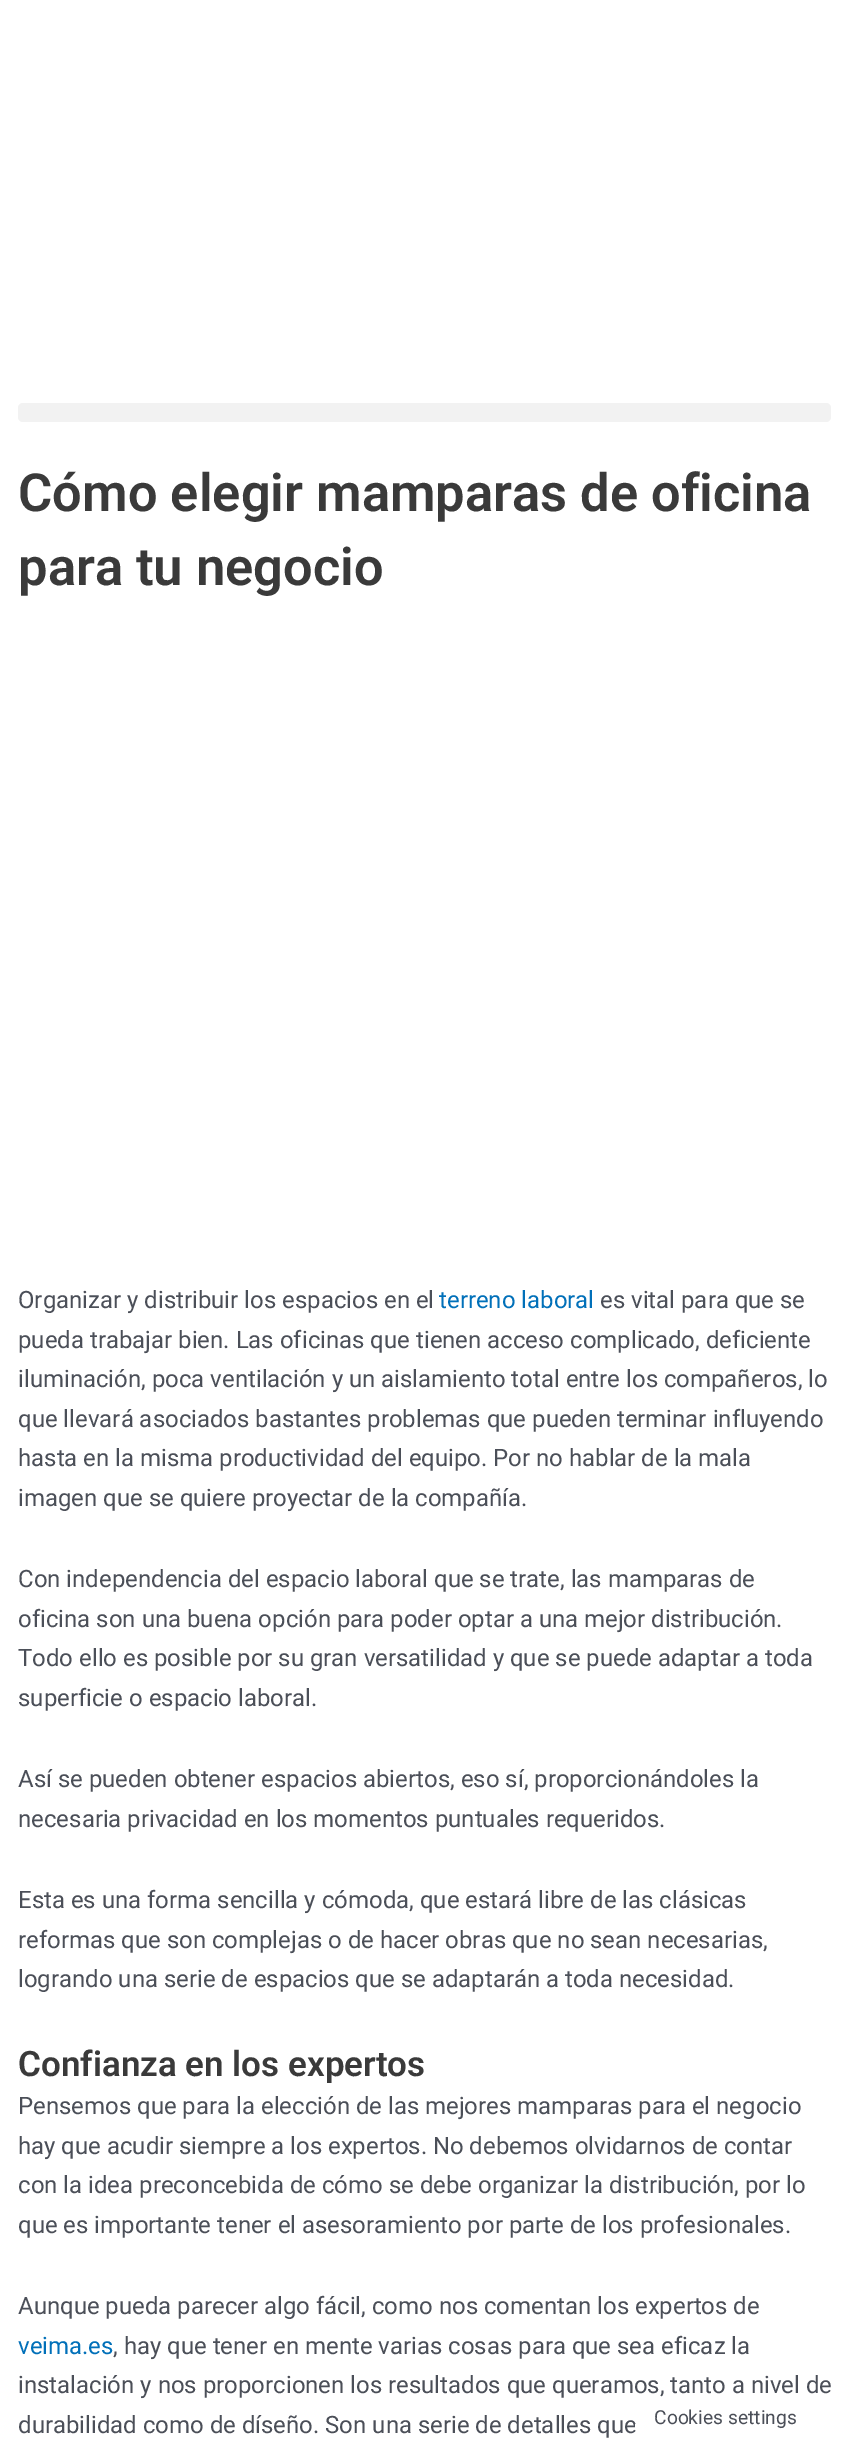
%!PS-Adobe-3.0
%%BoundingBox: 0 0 848 2439
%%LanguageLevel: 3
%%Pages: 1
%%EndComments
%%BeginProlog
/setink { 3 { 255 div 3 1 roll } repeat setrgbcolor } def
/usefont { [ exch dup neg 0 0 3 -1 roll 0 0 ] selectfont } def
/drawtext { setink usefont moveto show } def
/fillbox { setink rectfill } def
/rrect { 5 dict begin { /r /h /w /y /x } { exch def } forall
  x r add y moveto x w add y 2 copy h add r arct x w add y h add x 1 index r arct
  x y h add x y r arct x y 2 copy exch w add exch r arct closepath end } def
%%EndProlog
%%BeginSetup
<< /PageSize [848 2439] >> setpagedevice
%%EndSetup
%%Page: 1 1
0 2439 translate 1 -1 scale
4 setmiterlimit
0 0 848 2439 255 255 255 fillbox
242 242 242 setink
18 403 813 19 5 rrect fill
(Cómo elegir mamparas de oficina) 18 511 /Roboto-SemiBold 52.5 58 58 58 drawtext
(para tu negocio) 18 585 /Roboto-SemiBold 52.5 58 58 58 drawtext
(Organizar y distribuir los espacios en el) 18 1308 /Roboto-Regular 23.95 75 79 88 drawtext
(terreno laboral) 439 1308 /Roboto-Regular 23.95 1 112 185 drawtext
(es vital para que se) 600 1308 /Roboto-Regular 23.95 75 79 88 drawtext
(pueda trabajar bien. Las oficinas que tienen acceso complicado, deficiente) 18 1348 /Roboto-Regular 23.95 75 79 88 drawtext
(iluminación, poca ventilación y un aislamiento total entre los compañeros, lo) 18 1387 /Roboto-Regular 23.95 75 79 88 drawtext
(que llevará asociados bastantes problemas que pueden terminar influyendo) 18 1427 /Roboto-Regular 23.95 75 79 88 drawtext
(hasta en la misma productividad del equipo. Por no hablar de la mala) 18 1466 /Roboto-Regular 23.95 75 79 88 drawtext
(imagen que se quiere proyectar de la compañía.) 18 1506 /Roboto-Regular 23.95 75 79 88 drawtext
(Con independencia del espacio laboral que se trate, las mamparas de) 18 1587 /Roboto-Regular 23.95 75 79 88 drawtext
(oficina son una buena opción para poder optar a una mejor distribución.) 18 1627 /Roboto-Regular 23.95 75 79 88 drawtext
(Todo ello es posible por su gran versatilidad y que se puede adaptar a toda) 18 1666 /Roboto-Regular 23.95 75 79 88 drawtext
(superficie o espacio laboral.) 18 1706 /Roboto-Regular 23.95 75 79 88 drawtext
(Así se pueden obtener espacios abiertos, eso sí, proporcionándoles la) 18 1787 /Roboto-Regular 23.95 75 79 88 drawtext
(necesaria privacidad en los momentos puntuales requeridos.) 18 1827 /Roboto-Regular 23.95 75 79 88 drawtext
(Esta es una forma sencilla y cómoda, que estará libre de las clásicas) 18 1908 /Roboto-Regular 23.95 75 79 88 drawtext
(reformas que son complejas o de hacer obras que no sean necesarias,) 18 1948 /Roboto-Regular 23.95 75 79 88 drawtext
(logrando una serie de espacios que se adaptarán a toda necesidad.) 18 1987 /Roboto-Regular 23.95 75 79 88 drawtext
(Confianza en los expertos) 18 2076 /Roboto-SemiBold 35 58 58 58 drawtext
(Pensemos que para la elección de las mejores mamparas para el negocio) 18 2114 /Roboto-Regular 23.95 75 79 88 drawtext
(hay que acudir siempre a los expertos. No debemos olvidarnos de contar) 18 2154 /Roboto-Regular 23.95 75 79 88 drawtext
(con la idea preconcebida de cómo se debe organizar la distribución, por lo) 18 2193 /Roboto-Regular 23.95 75 79 88 drawtext
(que es importante tener el asesoramiento por parte de los profesionales.) 18 2233 /Roboto-Regular 23.95 75 79 88 drawtext
(Aunque pueda parecer algo fácil, como nos comentan los expertos de) 18 2314 /Roboto-Regular 23.95 75 79 88 drawtext
(veima.es) 18 2354 /Roboto-Regular 23.95 1 112 185 drawtext
(, hay que tener en mente varias cosas para que sea eficaz la) 113 2354 /Roboto-Regular 23.95 75 79 88 drawtext
(instalación y nos proporcionen los resultados que queramos, tanto a nivel de) 18 2393 /Roboto-Regular 23.95 75 79 88 drawtext
(durabilidad como de díseño. Son una serie de detalles que) 18 2433 /Roboto-Regular 23.95 75 79 88 drawtext
635 2424 1 4 255 255 255 fillbox
(Cookies settings) 654 2424 /Roboto-Regular 19.25 75 79 88 drawtext
showpage
%%EOF
